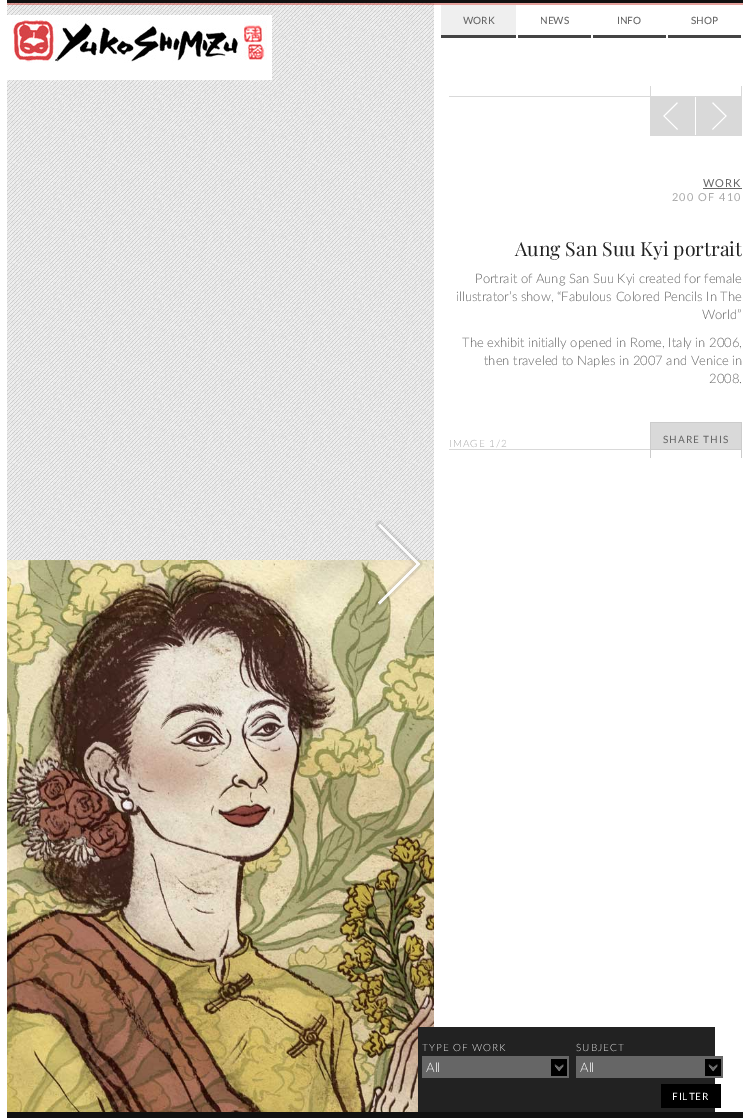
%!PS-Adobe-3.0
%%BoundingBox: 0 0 743 1118
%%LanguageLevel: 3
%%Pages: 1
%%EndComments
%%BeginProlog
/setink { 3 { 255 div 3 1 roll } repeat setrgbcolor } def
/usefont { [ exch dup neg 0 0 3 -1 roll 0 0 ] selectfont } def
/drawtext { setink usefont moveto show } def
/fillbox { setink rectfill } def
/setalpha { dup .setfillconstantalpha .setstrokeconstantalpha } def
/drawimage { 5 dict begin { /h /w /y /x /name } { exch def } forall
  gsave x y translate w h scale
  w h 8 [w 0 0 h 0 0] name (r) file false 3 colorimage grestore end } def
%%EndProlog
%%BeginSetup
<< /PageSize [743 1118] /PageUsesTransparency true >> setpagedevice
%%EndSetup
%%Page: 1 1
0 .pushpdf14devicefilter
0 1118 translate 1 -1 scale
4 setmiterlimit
0 0 743 1118 255 255 255 fillbox
7 0 736 3 17 17 17 fillbox
(assets/img2.rgb) 7 3 427 557 drawimage
0.5 setalpha
7 3 736 2 204 67 57 fillbox
1 setalpha
7 15 265 65 255 255 255 fillbox
(assets/img1.rgb) 12 20 255 43 drawimage
441 5 75 30 239 239 239 fillbox
441 35 75 3 68 68 68 fillbox
(WORK) 463 24 /Lato-Medium 10 102 102 102 drawtext
518 35 73 3 68 68 68 fillbox
(NEWS) 540 24 /Lato-Medium 10 102 102 102 drawtext
593 35 73 3 68 68 68 fillbox
(INFO) 617 24 /Lato-Medium 10 102 102 102 drawtext
668 35 73 3 68 68 68 fillbox
(SHOP) 691 24 /Lato-Medium 10 102 102 102 drawtext
(assets/img4.rgb) 7 560 427 552 drawimage
(assets/img3.rgb) 375 520 48 88 drawimage
449 96 201 1 217 217 217 fillbox
741 86 1 50 217 217 217 fillbox
650 96 92 1 217 217 217 fillbox
650 86 1 11 217 217 217 fillbox
650 135 92 1 217 217 217 fillbox
650 97 1 39 217 217 217 fillbox
651 97 44 38 217 217 217 fillbox
(assets/img5.rgb) 663 102 15 28 drawimage
696 97 45 38 217 217 217 fillbox
(assets/img6.rgb) 712 102 15 28 drawimage
/Lato-Regular 11 usefont
102 102 102 setink
703 187 moveto 1.1 0 (WORK) ashow
703 188 39 1 102 102 102 fillbox
170 170 170 setink
672 201 moveto 1.1 0 (200 OF 410) ashow
(Aung San Suu Kyi portrait) 515 256 /PlayfairDisplay-Regular 19.5 34 34 34 drawtext
(Portrait of Aung San Suu Kyi created for female) 475 283 /Lato-Light 13 102 102 102 drawtext
(illustrator’s show, “Fabulous Colored Pencils In The) 456 301 /Lato-Light 13 102 102 102 drawtext
(World”) 702 319 /Lato-Light 13 102 102 102 drawtext
(The exhibit initially opened in Rome, Italy in 2006,) 462 347 /Lato-Light 13 102 102 102 drawtext
(then traveled to Naples in 2007 and Venice in) 484 365 /Lato-Light 13 102 102 102 drawtext
(2008.) 709 383 /Lato-Light 13 102 102 102 drawtext
/Lato-Light 10 usefont
170 170 170 setink
449 447 moveto 1 0 (IMAGE 1/2) ashow
650 422 92 1 204 204 204 fillbox
741 422 1 27 204 204 204 fillbox
650 422 1 27 204 204 204 fillbox
651 423 90 26 217 217 217 fillbox
/Lato-Regular 10 usefont
102 102 102 setink
663 443 moveto 1 0 (SHARE THIS) ashow
449 449 201 1 217 217 217 fillbox
650 449 92 1 204 204 204 fillbox
741 449 1 11 204 204 204 fillbox
650 449 1 11 204 204 204 fillbox
650 458 92 2 255 255 255 fillbox
418 1027 297 85 34 34 34 fillbox
/Lato-Light 10 usefont
221 221 221 setink
422 1051 moveto 1 0 (TYPE OF WORK) ashow
422 1056 147 22 102 102 102 fillbox
(assets/img7.rgb) 551 1059 16 17 drawimage
(All) 426 1072 /Lato-Light 13 253 253 253 drawtext
/Lato-Light 10 usefont
221 221 221 setink
576 1051 moveto 1 0 (SUBJECT) ashow
576 1056 147 22 102 102 102 fillbox
(assets/img7.rgb) 705 1059 16 17 drawimage
(All) 580 1072 /Lato-Light 13 253 253 253 drawtext
661 1084 60 24 0 0 0 fillbox
/Lato-Regular 10 usefont
253 253 253 setink
672 1100 moveto 1 0 (FILTER) ashow
7 1112 736 6 17 17 17 fillbox
.poppdf14devicefilter showpage
%%EOF
